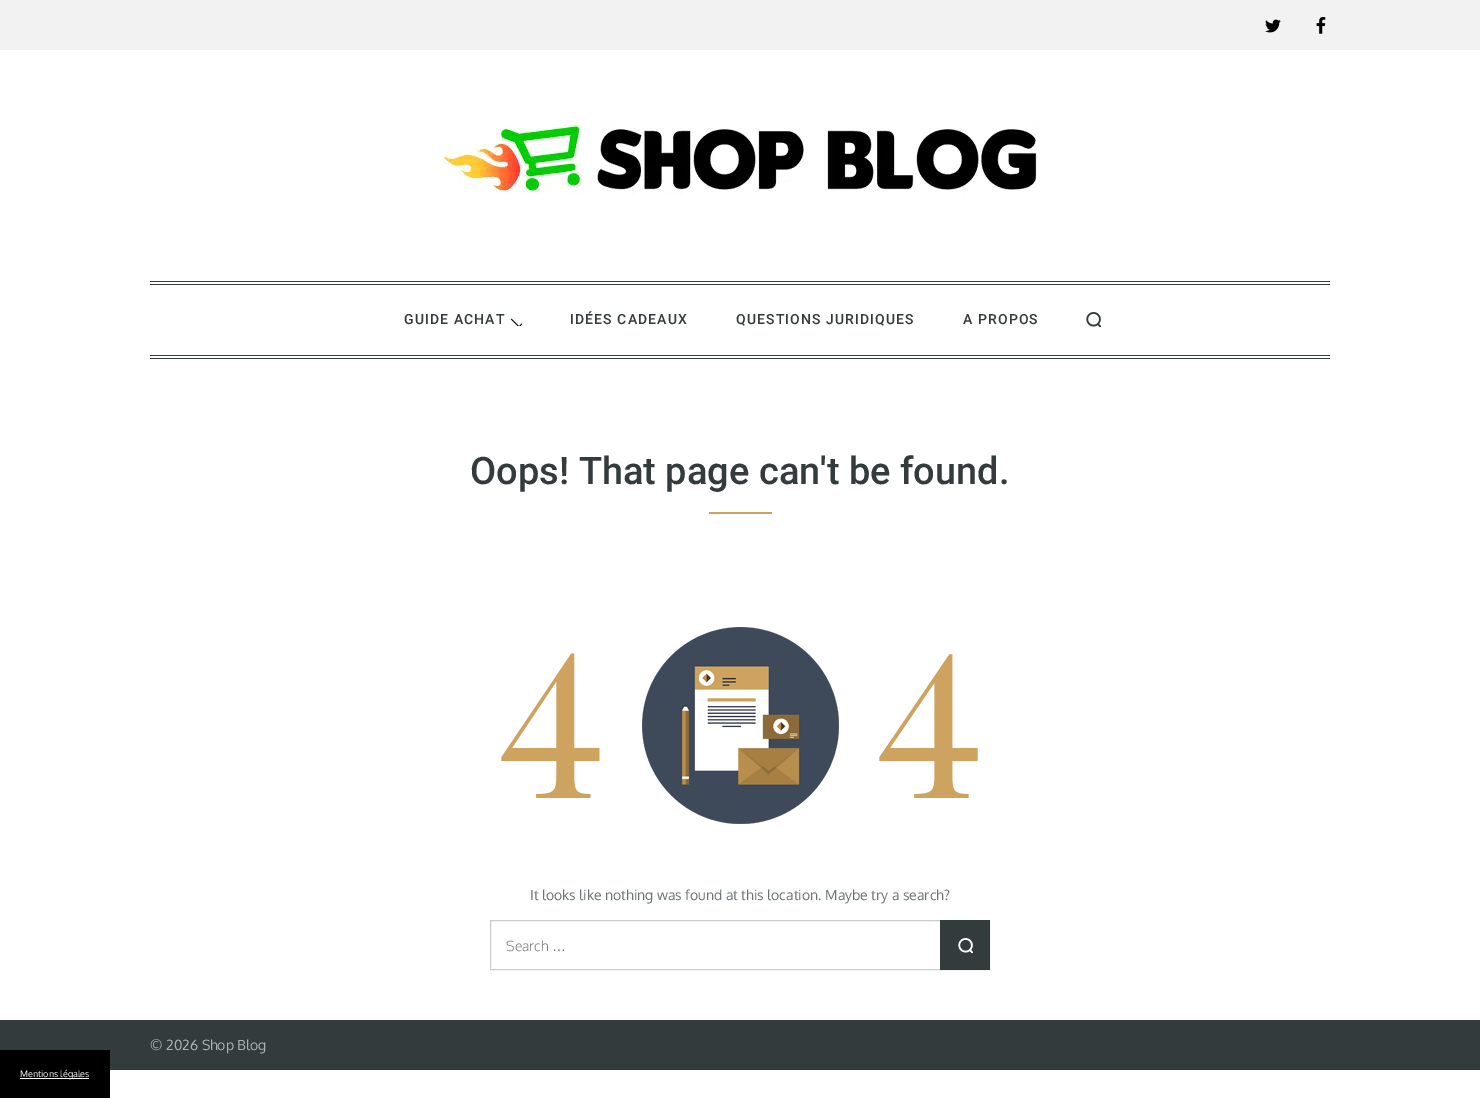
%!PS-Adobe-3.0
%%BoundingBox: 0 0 1480 1098
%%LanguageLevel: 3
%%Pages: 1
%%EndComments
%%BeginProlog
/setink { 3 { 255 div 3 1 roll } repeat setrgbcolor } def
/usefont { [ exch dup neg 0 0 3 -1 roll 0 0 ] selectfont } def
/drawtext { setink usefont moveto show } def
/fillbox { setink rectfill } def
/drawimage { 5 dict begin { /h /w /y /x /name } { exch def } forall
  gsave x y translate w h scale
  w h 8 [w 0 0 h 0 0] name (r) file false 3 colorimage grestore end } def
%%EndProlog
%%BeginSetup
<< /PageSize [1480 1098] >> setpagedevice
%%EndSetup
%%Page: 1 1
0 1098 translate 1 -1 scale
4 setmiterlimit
0 0 1480 1098 255 255 255 fillbox
0 0 1480 50 242 242 242 fillbox
(assets/img1.rgb) 1265 19 16 14 drawimage
(assets/img2.rgb) 1316 17 10 17 drawimage
(assets/img3.rgb) 440 120 600 76 drawimage
150 284 1180 1 52 59 61 fillbox
150 355 1180 1 52 59 61 fillbox
150 281 1180 1 52 59 61 fillbox
/Roboto-Medium 14 usefont
404 324 moveto 1.1 0 (GUIDE ACHAT) ashow
(assets/img4.rgb) 510 318 12 8 drawimage
570 324 moveto 1.1 0 (IDÉES CADEAUX) ashow
736 324 moveto 1.1 0 (QUESTIONS JURIDIQUES) ashow
963 324 moveto 1.1 0 (A PROPOS) ashow
(assets/img5.rgb) 1086 312 15 15 drawimage
150 358 1180 1 52 59 61 fillbox
(Oops! That page can't be found.) 470 484 /Roboto-Medium 38 52 59 61 drawtext
709 512 63 2 206 163 95 fillbox
(assets/img6.rgb) 501 627 477 197 drawimage
(It looks like nothing was found at this location. Maybe try a search?) 530 900 /Oxygen-Regular 14 105 114 117 drawtext
204 204 204 setink
490.5 920.5 499 49 rectstroke
(Search) 506 951 /Oxygen-Light 14 117 117 117 drawtext
(…) 552 951 /LiberationSans-Regular 14 117 117 117 drawtext
940 920 50 50 52 59 61 fillbox
(assets/img7.rgb) 958 938 15 15 drawimage
0 1020 1480 50 52 59 61 fillbox
(© 2026 Shop Blog) 150 1050 /Oxygen-Regular 14 174 175 176 drawtext
0 1050 110 48 0 0 0 fillbox
20 1078 69 1 255 255 255 fillbox
(Mentions légales) 20 1077 /Oxygen-Regular 9 255 255 255 drawtext
showpage
%%EOF
